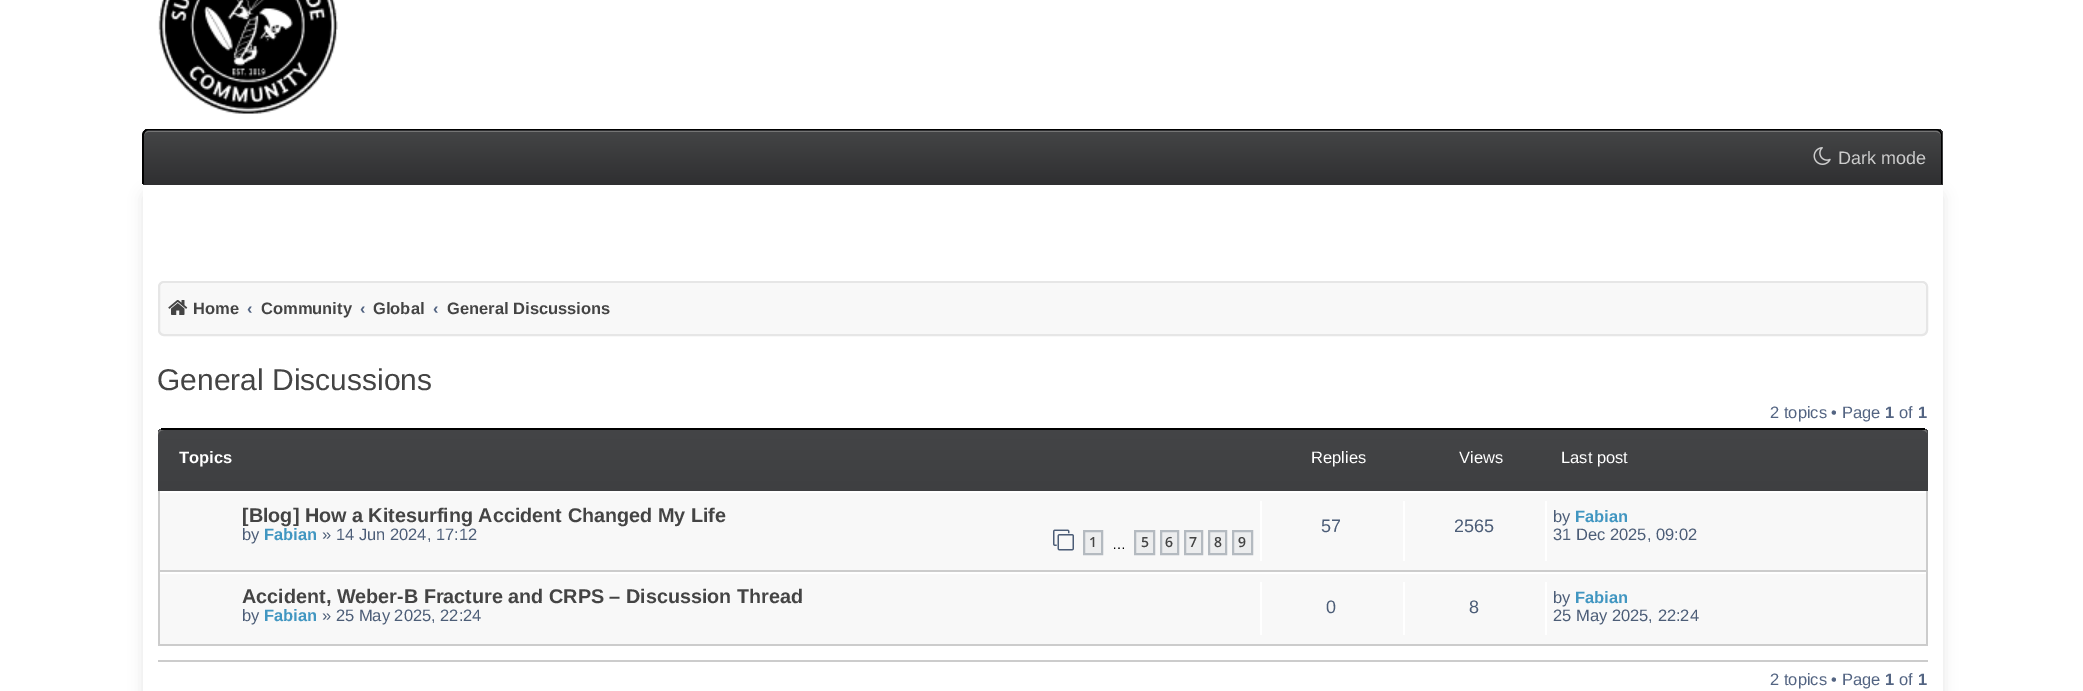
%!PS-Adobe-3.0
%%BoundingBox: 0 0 2083 691
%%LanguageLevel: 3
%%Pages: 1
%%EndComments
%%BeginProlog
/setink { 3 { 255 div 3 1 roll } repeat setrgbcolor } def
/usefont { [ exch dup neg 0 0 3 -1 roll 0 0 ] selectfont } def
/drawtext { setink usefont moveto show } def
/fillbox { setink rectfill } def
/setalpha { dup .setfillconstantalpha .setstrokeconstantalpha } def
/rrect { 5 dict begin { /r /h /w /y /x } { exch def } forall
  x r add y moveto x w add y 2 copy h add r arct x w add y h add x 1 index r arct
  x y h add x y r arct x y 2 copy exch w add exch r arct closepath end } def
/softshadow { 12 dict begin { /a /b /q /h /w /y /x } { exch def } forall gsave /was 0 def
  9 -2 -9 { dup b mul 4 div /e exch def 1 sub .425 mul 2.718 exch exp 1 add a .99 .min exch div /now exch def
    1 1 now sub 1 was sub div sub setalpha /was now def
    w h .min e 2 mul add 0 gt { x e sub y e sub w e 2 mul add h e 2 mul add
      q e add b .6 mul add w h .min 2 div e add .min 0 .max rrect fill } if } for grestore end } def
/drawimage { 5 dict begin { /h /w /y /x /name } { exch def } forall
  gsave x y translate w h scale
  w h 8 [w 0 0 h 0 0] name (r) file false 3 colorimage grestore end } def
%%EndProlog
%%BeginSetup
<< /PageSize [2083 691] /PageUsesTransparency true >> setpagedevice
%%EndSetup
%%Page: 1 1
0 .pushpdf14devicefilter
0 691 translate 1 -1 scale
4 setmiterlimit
0 0 2083 691 255 255 255 fillbox
(assets/img1.rgb) 158 0 180 114 drawimage
gsave
149 129 moveto 1937 129 lineto 1940.5 129 1943 131.5 1943 135 curveto 1943 185 lineto 143 185 lineto 143 135 lineto 143 131.5 145.5 129 149 129 curveto closepath clip newpath
gsave 143 129 moveto 1943 129 lineto 1943 131 lineto 143 131 lineto closepath clip newpath
<< /ShadingType 2 /ColorSpace /DeviceRGB /Coords [1043 76 1043 131] /Extend [true true] /Function << /FunctionType 2 /Domain [0 1] /C0 [0.267 0.271 0.278] /C1 [0.184 0.184 0.192] /N 1 >> >> shfill grestore
gsave 143 131 moveto 1943 131 lineto 1943 185 lineto 143 185 lineto closepath clip newpath
<< /ShadingType 2 /ColorSpace /DeviceRGB /Coords [1043 130 1043 185] /Extend [true true] /Function << /FunctionType 2 /Domain [0 1] /C0 [0.267 0.271 0.278] /C1 [0.184 0.184 0.192] /N 1 >> >> shfill grestore
grestore
117 117 117 setink
148 132 moveto 1936 132 lineto 1939 132 1941 134 1941 136 curveto 1941 133 1939 131 1936 131 curveto 149 131 lineto 146 131 144 133 144 136 curveto 144 134 146 132 148 132 curveto closepath fill
0 0 0 setink
148 129 moveto 1936 129 lineto 1940 129 1942 132 1942 135 curveto 1942 184 lineto 142 184 lineto 142 135 lineto 142 132 145 129 148 129 curveto closepath 148 130 moveto 1936 130 lineto 1939 130 1941 133 1941 135 curveto 1941 184 lineto 144 184 lineto 144 135 lineto 144 133 146 130 148 130 curveto closepath eofill
(assets/img2.rgb) 1813 147 18 18 drawimage
(Dark mode) 1838 164 /LiberationSans-Regular 18 204 204 204 drawtext
0 0 0 setink
143 192 1800 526 6 7 0.1 softshadow
143 185 1800 506 255 255 255 fillbox
248 248 248 setink
158 281 1770 55 6 rrect fill
255 255 255 setink
164 284 moveto 1922 284 lineto 1924 284 1926 286 1926 288 curveto 1926 287 lineto 1926 284 1924 282 1921 282 curveto 164 282 lineto 161 282 159 284 159 287 curveto 159 288 lineto 159 286 161 284 164 284 curveto closepath fill
230 230 230 setink
2 setlinewidth
159 282 1768 53 5 rrect stroke
(assets/img3.rgb) 168 300 20 15 drawimage
(Home) 193 314 /LiberationSans-Bold 16.5 68 68 68 drawtext
(‹) 247 314 /LiberationSans-Bold 16.5 83 100 130 drawtext
(Community) 261 314 /LiberationSans-Bold 16.5 68 68 68 drawtext
(‹) 360 314 /LiberationSans-Bold 16.5 83 100 130 drawtext
(Global) 373 314 /LiberationSans-Bold 16.5 68 68 68 drawtext
(‹) 433 314 /LiberationSans-Bold 16.5 83 100 130 drawtext
(General Discussions) 447 314 /LiberationSans-Bold 16.5 68 68 68 drawtext
(General Discussions) 157 390 /LiberationSans-Regular 30 68 68 68 drawtext
(2 topics • Page) 1770 418 /LiberationSans-Regular 16.5 83 100 130 drawtext
(1) 1885 418 /LiberationSans-Bold 16.5 83 100 130 drawtext
(of) 1899 418 /LiberationSans-Regular 16.5 83 100 130 drawtext
(1) 1918 418 /LiberationSans-Bold 16.5 83 100 130 drawtext
gsave
164 428 moveto 1922 428 lineto 1925.5 428 1928 430.5 1928 434 curveto 1928 645 lineto 158 645 lineto 158 434 lineto 158 430.5 160.5 428 164 428 curveto closepath clip newpath
gsave 158 429 moveto 1928 429 lineto 1928 491 lineto 158 491 lineto closepath clip newpath
<< /ShadingType 2 /ColorSpace /DeviceRGB /Coords [1043 429 1043 645] /Extend [true true] /Function << /FunctionType 2 /Domain [0 1] /C0 [0.267 0.271 0.278] /C1 [0.184 0.184 0.192] /N 1 >> >> shfill grestore
grestore
117 117 117 setink
164 430 moveto 1922 430 lineto 1924 430 1927 432 1927 433 curveto 1927 431 1925 429 1922 429 curveto 164 429 lineto 160 429 158 431 158 434 curveto 158 645 lineto 158 435 lineto 158 433 160 430 164 430 curveto closepath fill
161 428 1764 2 0 0 0 fillbox
(Topics) 179 463 /LiberationSans-Bold 16.5 255 255 255 drawtext
(Replies) 1311 463 /LiberationSans-Regular 16.5 255 255 255 drawtext
(Views) 1459 463 /LiberationSans-Regular 16.5 255 255 255 drawtext
(Last post) 1561 463 /LiberationSans-Regular 16.5 255 255 255 drawtext
160 493 1766 77 248 248 248 fillbox
158 491 1770 2 255 255 255 fillbox
1926 491 2 81 204 204 204 fillbox
158 570 1770 2 204 204 204 fillbox
158 491 2 81 204 204 204 fillbox
([Blog] How a Kitesurfing Accident Changed My Life) 242 522 /LiberationSans-Bold 19.8 68 68 68 drawtext
(by) 242 540 /LiberationSans-Regular 16.5 76 93 119 drawtext
(Fabian) 264 540 /LiberationSans-Bold 16.5 65 150 193 drawtext
(» 14 Jun 2024, 17:12) 322 540 /LiberationSans-Regular 16.5 76 93 119 drawtext
(assets/img4.rgb) 1053 529 21 22 drawimage
236 237 238 setink
1084 531 moveto 1102 531 lineto 1102 554 lineto 1084 554 lineto closepath gsave fill grestore
180 186 192 setink
stroke
(1) 1089 547 /OpenSans-SemiBold 14 68 68 68 drawtext
(…) 1112 549 /LiberationSans-Regular 14 0 0 0 drawtext
236 237 238 setink
1135 531 moveto 1154 531 lineto 1154 554 lineto 1135 554 lineto closepath gsave fill grestore
180 186 192 setink
stroke
(5) 1141 547 /OpenSans-SemiBold 14 68 68 68 drawtext
236 237 238 setink
1161 531 moveto 1178 531 lineto 1178 554 lineto 1161 554 lineto closepath gsave fill grestore
180 186 192 setink
stroke
(6) 1165 547 /OpenSans-SemiBold 14 68 68 68 drawtext
236 237 238 setink
1185 531 moveto 1202 531 lineto 1202 554 lineto 1185 554 lineto closepath gsave fill grestore
180 186 192 setink
stroke
(7) 1189 547 /OpenSans-SemiBold 14 68 68 68 drawtext
236 237 238 setink
1209 531 moveto 1226 531 lineto 1226 554 lineto 1209 554 lineto closepath gsave fill grestore
180 186 192 setink
stroke
(8) 1214 547 /OpenSans-SemiBold 14 68 68 68 drawtext
236 237 238 setink
1233 531 moveto 1252 531 lineto 1252 554 lineto 1233 554 lineto closepath gsave fill grestore
180 186 192 setink
stroke
(9) 1238 547 /OpenSans-SemiBold 14 68 68 68 drawtext
1260 501 2 60 255 255 255 fillbox
(57) 1321 532 /LiberationSans-Regular 18 76 93 119 drawtext
1403 501 2 60 255 255 255 fillbox
(2565) 1454 532 /LiberationSans-Regular 18 76 93 119 drawtext
1545 501 2 60 255 255 255 fillbox
(by) 1553 522 /LiberationSans-Regular 16.5 76 93 119 drawtext
(Fabian) 1575 522 /LiberationSans-Bold 16.5 65 150 193 drawtext
(31 Dec 2025, 09:02) 1553 540 /LiberationSans-Regular 16.5 76 93 119 drawtext
160 574 1766 70 248 248 248 fillbox
158 572 1770 2 255 255 255 fillbox
1926 572 2 73 204 204 204 fillbox
158 644 1770 2 204 204 204 fillbox
158 572 2 73 204 204 204 fillbox
(Accident, Weber-B Fracture and CRPS – Discussion Thread) 242 603 /LiberationSans-Bold 19.8 68 68 68 drawtext
(by) 242 621 /LiberationSans-Regular 16.5 76 93 119 drawtext
(Fabian) 264 621 /LiberationSans-Bold 16.5 65 150 193 drawtext
(» 25 May 2025, 22:24) 322 621 /LiberationSans-Regular 16.5 76 93 119 drawtext
1260 582 2 53 255 255 255 fillbox
(0) 1326 613 /LiberationSans-Regular 18 76 93 119 drawtext
1403 582 2 53 255 255 255 fillbox
(8) 1469 613 /LiberationSans-Regular 18 76 93 119 drawtext
1545 582 2 53 255 255 255 fillbox
(by) 1553 603 /LiberationSans-Regular 16.5 76 93 119 drawtext
(Fabian) 1575 603 /LiberationSans-Bold 16.5 65 150 193 drawtext
(25 May 2025, 22:24) 1553 621 /LiberationSans-Regular 16.5 76 93 119 drawtext
158 660 1770 2 204 204 204 fillbox
(2 topics • Page) 1770 685 /LiberationSans-Regular 16.5 83 100 130 drawtext
(1) 1885 685 /LiberationSans-Bold 16.5 83 100 130 drawtext
(of) 1899 685 /LiberationSans-Regular 16.5 83 100 130 drawtext
(1) 1918 685 /LiberationSans-Bold 16.5 83 100 130 drawtext
.poppdf14devicefilter showpage
%%EOF
